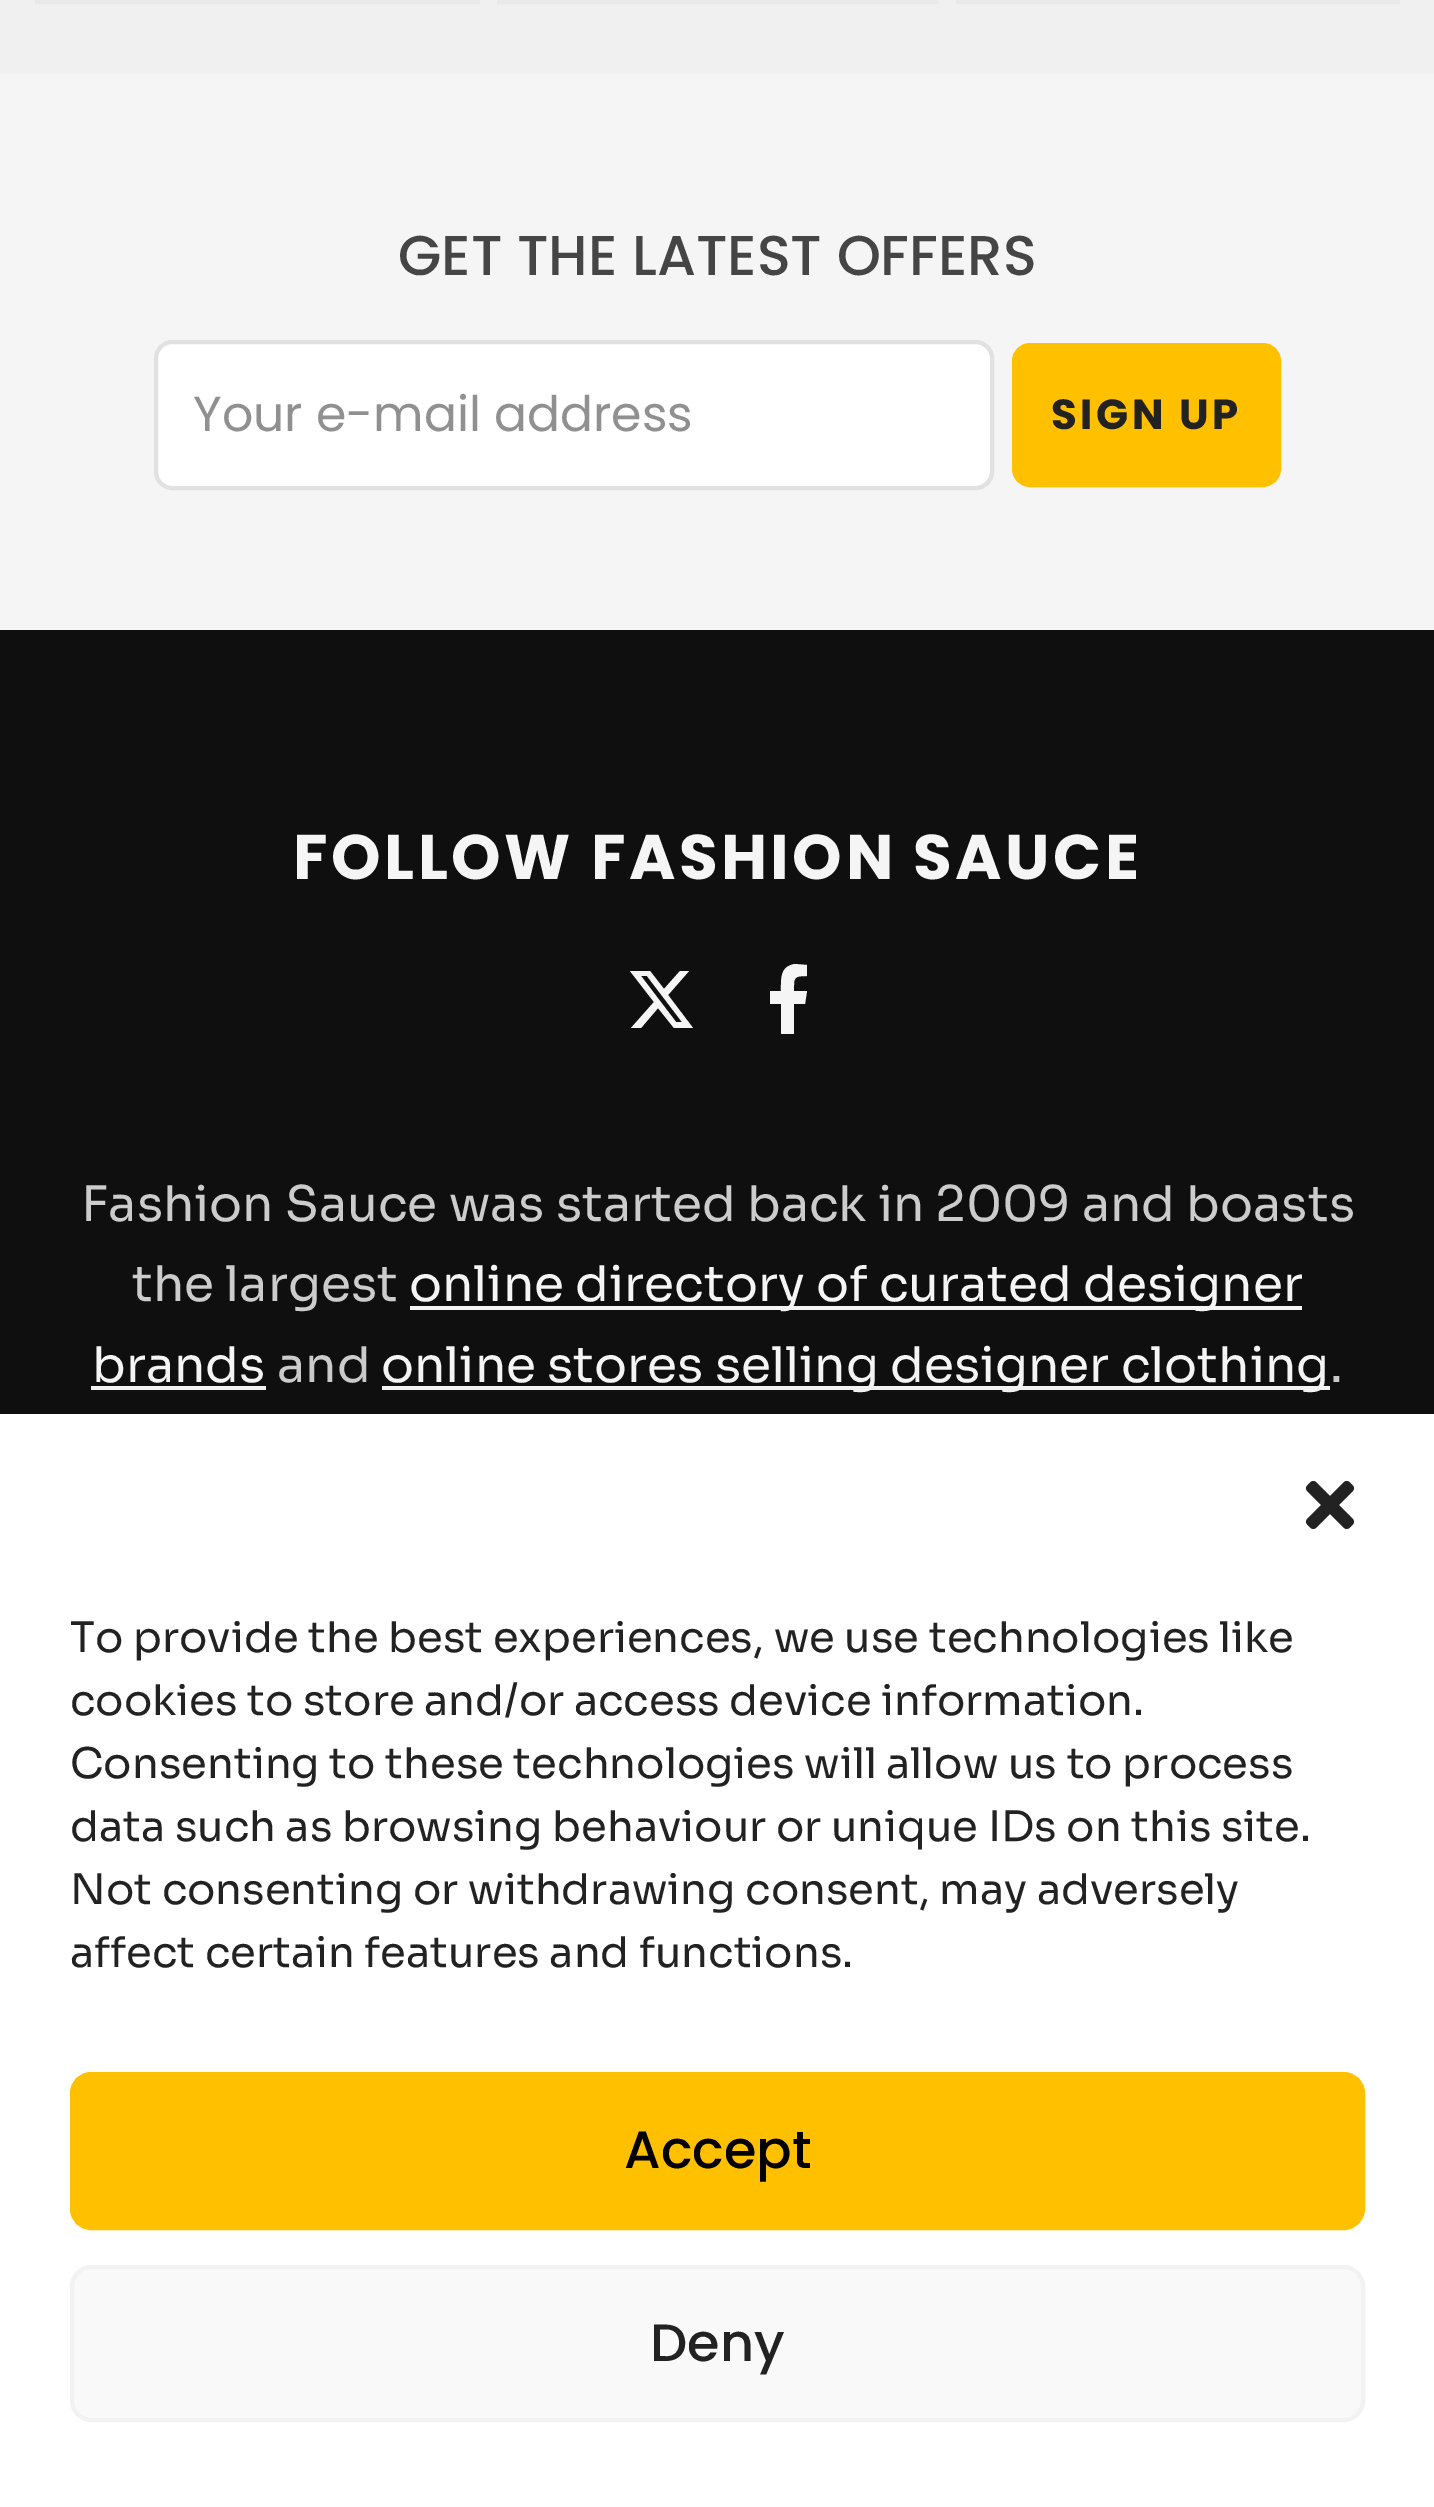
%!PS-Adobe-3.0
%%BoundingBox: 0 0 1434 2507
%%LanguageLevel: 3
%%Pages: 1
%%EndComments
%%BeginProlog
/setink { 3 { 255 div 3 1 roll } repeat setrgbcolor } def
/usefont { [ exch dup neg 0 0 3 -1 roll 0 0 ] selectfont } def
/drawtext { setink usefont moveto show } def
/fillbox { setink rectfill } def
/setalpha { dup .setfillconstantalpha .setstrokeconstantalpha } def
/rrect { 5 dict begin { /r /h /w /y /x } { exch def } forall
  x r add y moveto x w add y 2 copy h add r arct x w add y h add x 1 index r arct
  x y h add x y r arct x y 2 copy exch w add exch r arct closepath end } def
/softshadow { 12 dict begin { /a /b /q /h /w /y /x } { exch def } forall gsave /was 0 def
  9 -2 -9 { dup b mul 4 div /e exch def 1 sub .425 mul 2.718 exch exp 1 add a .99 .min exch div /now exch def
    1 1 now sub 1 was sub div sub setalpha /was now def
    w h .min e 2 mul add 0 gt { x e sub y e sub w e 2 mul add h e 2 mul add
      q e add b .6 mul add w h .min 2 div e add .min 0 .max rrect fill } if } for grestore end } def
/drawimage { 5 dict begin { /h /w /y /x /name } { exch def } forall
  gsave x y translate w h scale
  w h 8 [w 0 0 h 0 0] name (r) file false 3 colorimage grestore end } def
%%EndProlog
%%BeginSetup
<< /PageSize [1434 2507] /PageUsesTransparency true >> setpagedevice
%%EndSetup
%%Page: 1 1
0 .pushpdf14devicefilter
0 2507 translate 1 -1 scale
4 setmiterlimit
0 0 1434 2507 240 240 240 fillbox
233 233 233 setink
4 setlinewidth
37 -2 441 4 rectstroke
499 -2 437 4 rectstroke
958 -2 440 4 rectstroke
0 74 1434 556 245 245 245 fillbox
(GET THE LATEST OFFERS) 398 275 /Poppins-Medium 56 69 69 69 drawtext
255 255 255 setink
156 342 836 146 16 rrect gsave fill grestore
225 225 225 setink
stroke
(Your e-mail address) 193 431 /Poppins-Regular 49 144 144 144 drawtext
255 192 0 setink
1014 345 265 140 16 rrect gsave fill grestore
stroke
/Poppins-Bold 42 usefont
34 34 34 setink
1051 429 moveto 3.5 0 (SIGN UP) ashow
0 630 1434 784 15 15 15 fillbox
/Poppins-Bold 63 usefont
245 245 245 setink
293 879 moveto 3.5 0 (FOLLOW FASHION SAUCE) ashow
680 971 moveto 689 971 lineto 668 995 lineto 693 1028 lineto 674 1028 lineto 658 1008 lineto 641 1028 lineto 631 1028 lineto 654 1002 lineto 630 971 lineto 650 971 lineto 664 989 lineto closepath 676 1022 moveto 682 1022 lineto 647 976 lineto 641 976 lineto closepath fill
805 1004 moveto 807 991 lineto 794 991 lineto 794 978 793 976 807 976 curveto 807 965 lineto 795 964 lineto 780 966 781 979 781 991 curveto 770 991 lineto 770 1004 lineto 781 1004 lineto 781 1034 lineto 794 1034 lineto 794 1004 lineto closepath fill
(Fashion Sauce was started back in 2009 and boasts) 81 1221 /Sora-Regular 49 204 204 204 drawtext
(the largest) 132 1301 /Sora-Regular 49 204 204 204 drawtext
410 1306 892 4 245 245 245 fillbox
(online directory of curated designer) 409 1301 /Sora-Regular 49 245 245 245 drawtext
(brands) 92 1382 /Sora-Regular 49 245 245 245 drawtext
91 1386 175 4 245 245 245 fillbox
(and) 277 1382 /Sora-Regular 49 204 204 204 drawtext
382 1386 948 4 245 245 245 fillbox
(online stores selling designer clothing) 381 1382 /Sora-Regular 49 245 245 245 drawtext
(.) 1330 1382 /Sora-Regular 49 204 204 204 drawtext
0 0 0 setink
0 1449 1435 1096 0 35 0.19 softshadow
0 1414 1434 1093 255 255 255 fillbox
(assets/img1.rgb) 1305 1480 50 50 drawimage
(To provide the best experiences, we use technologies like) 70 1652 /Sora-Regular 42 34 34 34 drawtext
(cookies to store and/or access device information.) 70 1715 /Sora-Regular 42 34 34 34 drawtext
(Consenting to these technologies will allow us to process) 70 1778 /Sora-Regular 42 34 34 34 drawtext
(data such as browsing behaviour or unique IDs on this site.) 70 1841 /Sora-Regular 42 34 34 34 drawtext
(Not consenting or withdrawing consent, may adversely) 70 1904 /Sora-Regular 42 34 34 34 drawtext
(affect certain features and functions.) 70 1967 /Sora-Regular 42 34 34 34 drawtext
255 192 0 setink
72 2074 1291 154 19 rrect gsave fill grestore
stroke
(Accept) 624 2168 /Poppins-Medium 52.5 0 0 0 drawtext
249 249 249 setink
72 2267 1291 153 19 rrect gsave fill grestore
242 242 242 setink
stroke
(Deny) 650 2361 /Poppins-Medium 52.5 34 34 34 drawtext
.poppdf14devicefilter showpage
%%EOF
